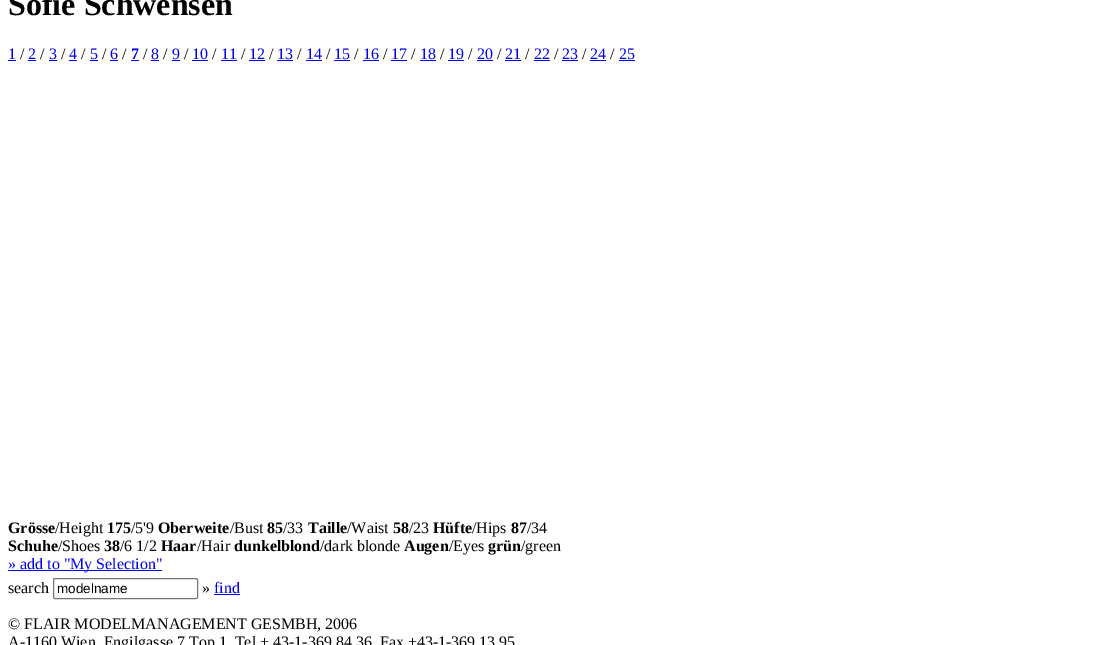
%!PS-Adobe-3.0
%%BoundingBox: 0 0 1111 645
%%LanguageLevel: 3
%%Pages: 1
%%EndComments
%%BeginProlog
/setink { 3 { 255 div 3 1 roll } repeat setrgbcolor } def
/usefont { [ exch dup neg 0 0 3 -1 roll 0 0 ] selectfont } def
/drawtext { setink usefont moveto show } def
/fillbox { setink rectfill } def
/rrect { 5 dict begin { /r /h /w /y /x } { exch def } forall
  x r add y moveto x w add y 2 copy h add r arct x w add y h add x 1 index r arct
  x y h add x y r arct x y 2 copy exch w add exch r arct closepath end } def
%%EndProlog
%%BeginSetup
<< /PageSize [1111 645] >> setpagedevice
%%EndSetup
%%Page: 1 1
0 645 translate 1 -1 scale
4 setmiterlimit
0 0 1111 645 255 255 255 fillbox
(Sofie Schwensen) 8 15 /LiberationSerif-Bold 32 0 0 0 drawtext
(1) 8 59 /LiberationSerif-Regular 16 0 0 238 drawtext
8 60 8 1 0 0 238 fillbox
(/) 20 59 /LiberationSerif-Regular 16 0 0 0 drawtext
(2) 28 59 /LiberationSerif-Regular 16 0 0 238 drawtext
28 60 8 1 0 0 238 fillbox
(/) 40 59 /LiberationSerif-Regular 16 0 0 0 drawtext
(3) 49 59 /LiberationSerif-Regular 16 0 0 238 drawtext
49 60 8 1 0 0 238 fillbox
(/) 61 59 /LiberationSerif-Regular 16 0 0 0 drawtext
(4) 69 59 /LiberationSerif-Regular 16 0 0 238 drawtext
69 60 8 1 0 0 238 fillbox
(/) 81 59 /LiberationSerif-Regular 16 0 0 0 drawtext
(5) 90 59 /LiberationSerif-Regular 16 0 0 238 drawtext
90 60 8 1 0 0 238 fillbox
(/) 102 59 /LiberationSerif-Regular 16 0 0 0 drawtext
(6) 110 59 /LiberationSerif-Regular 16 0 0 238 drawtext
110 60 8 1 0 0 238 fillbox
(/) 122 59 /LiberationSerif-Regular 16 0 0 0 drawtext
(7) 131 59 /LiberationSerif-Bold 16 0 0 238 drawtext
131 60 8 1 0 0 238 fillbox
(/) 143 59 /LiberationSerif-Regular 16 0 0 0 drawtext
(8) 151 59 /LiberationSerif-Regular 16 0 0 238 drawtext
151 60 8 1 0 0 238 fillbox
(/) 163 59 /LiberationSerif-Regular 16 0 0 0 drawtext
(9) 172 59 /LiberationSerif-Regular 16 0 0 238 drawtext
172 60 8 1 0 0 238 fillbox
(/) 184 59 /LiberationSerif-Regular 16 0 0 0 drawtext
(10) 192 59 /LiberationSerif-Regular 16 0 0 238 drawtext
192 60 16 1 0 0 238 fillbox
(/) 212 59 /LiberationSerif-Regular 16 0 0 0 drawtext
(11) 221 59 /LiberationSerif-Regular 16 0 0 238 drawtext
221 60 16 1 0 0 238 fillbox
(/) 241 59 /LiberationSerif-Regular 16 0 0 0 drawtext
(12) 249 59 /LiberationSerif-Regular 16 0 0 238 drawtext
249 60 16 1 0 0 238 fillbox
(/) 269 59 /LiberationSerif-Regular 16 0 0 0 drawtext
(13) 277 59 /LiberationSerif-Regular 16 0 0 238 drawtext
277 60 16 1 0 0 238 fillbox
(/) 297 59 /LiberationSerif-Regular 16 0 0 0 drawtext
(14) 306 59 /LiberationSerif-Regular 16 0 0 238 drawtext
306 60 16 1 0 0 238 fillbox
(/) 326 59 /LiberationSerif-Regular 16 0 0 0 drawtext
(15) 334 59 /LiberationSerif-Regular 16 0 0 238 drawtext
334 60 16 1 0 0 238 fillbox
(/) 354 59 /LiberationSerif-Regular 16 0 0 0 drawtext
(16) 363 59 /LiberationSerif-Regular 16 0 0 238 drawtext
363 60 16 1 0 0 238 fillbox
(/) 383 59 /LiberationSerif-Regular 16 0 0 0 drawtext
(17) 391 59 /LiberationSerif-Regular 16 0 0 238 drawtext
391 60 16 1 0 0 238 fillbox
(/) 411 59 /LiberationSerif-Regular 16 0 0 0 drawtext
(18) 420 59 /LiberationSerif-Regular 16 0 0 238 drawtext
420 60 16 1 0 0 238 fillbox
(/) 440 59 /LiberationSerif-Regular 16 0 0 0 drawtext
(19) 448 59 /LiberationSerif-Regular 16 0 0 238 drawtext
448 60 16 1 0 0 238 fillbox
(/) 468 59 /LiberationSerif-Regular 16 0 0 0 drawtext
(20) 477 59 /LiberationSerif-Regular 16 0 0 238 drawtext
477 60 16 1 0 0 238 fillbox
(/) 497 59 /LiberationSerif-Regular 16 0 0 0 drawtext
(21) 505 59 /LiberationSerif-Regular 16 0 0 238 drawtext
505 60 16 1 0 0 238 fillbox
(/) 525 59 /LiberationSerif-Regular 16 0 0 0 drawtext
(22) 534 59 /LiberationSerif-Regular 16 0 0 238 drawtext
534 60 16 1 0 0 238 fillbox
(/) 554 59 /LiberationSerif-Regular 16 0 0 0 drawtext
(23) 562 59 /LiberationSerif-Regular 16 0 0 238 drawtext
562 60 16 1 0 0 238 fillbox
(/) 582 59 /LiberationSerif-Regular 16 0 0 0 drawtext
(24) 590 59 /LiberationSerif-Regular 16 0 0 238 drawtext
590 60 16 1 0 0 238 fillbox
(/) 610 59 /LiberationSerif-Regular 16 0 0 0 drawtext
(25) 619 59 /LiberationSerif-Regular 16 0 0 238 drawtext
619 60 16 1 0 0 238 fillbox
(Grösse) 8 533 /LiberationSerif-Bold 16 0 0 0 drawtext
(/Height) 55 533 /LiberationSerif-Regular 16 0 0 0 drawtext
(175) 107 533 /LiberationSerif-Bold 16 0 0 0 drawtext
(/5'9) 131 533 /LiberationSerif-Regular 16 0 0 0 drawtext
(Oberweite) 158 533 /LiberationSerif-Bold 16 0 0 0 drawtext
(/Bust) 230 533 /LiberationSerif-Regular 16 0 0 0 drawtext
(85) 267 533 /LiberationSerif-Bold 16 0 0 0 drawtext
(/33) 283 533 /LiberationSerif-Regular 16 0 0 0 drawtext
(Taille) 308 533 /LiberationSerif-Bold 16 0 0 0 drawtext
(/Waist) 347 533 /LiberationSerif-Regular 16 0 0 0 drawtext
(58) 393 533 /LiberationSerif-Bold 16 0 0 0 drawtext
(/23) 409 533 /LiberationSerif-Regular 16 0 0 0 drawtext
(Hüfte) 433 533 /LiberationSerif-Bold 16 0 0 0 drawtext
(/Hips) 472 533 /LiberationSerif-Regular 16 0 0 0 drawtext
(87) 511 533 /LiberationSerif-Bold 16 0 0 0 drawtext
(/34) 527 533 /LiberationSerif-Regular 16 0 0 0 drawtext
(Schuhe) 8 551 /LiberationSerif-Bold 16 0 0 0 drawtext
(/Shoes) 58 551 /LiberationSerif-Regular 16 0 0 0 drawtext
(38) 104 551 /LiberationSerif-Bold 16 0 0 0 drawtext
(/6 1/2) 120 551 /LiberationSerif-Regular 16 0 0 0 drawtext
(Haar) 161 551 /LiberationSerif-Bold 16 0 0 0 drawtext
(/Hair) 197 551 /LiberationSerif-Regular 16 0 0 0 drawtext
(dunkelblond) 234 551 /LiberationSerif-Bold 16 0 0 0 drawtext
(/dark blonde) 320 551 /LiberationSerif-Regular 16 0 0 0 drawtext
(Augen) 404 551 /LiberationSerif-Bold 16 0 0 0 drawtext
(/Eyes) 449 551 /LiberationSerif-Regular 16 0 0 0 drawtext
(grün) 488 551 /LiberationSerif-Bold 16 0 0 0 drawtext
(/green) 521 551 /LiberationSerif-Regular 16 0 0 0 drawtext
8 570 154 1 0 0 238 fillbox
(» add to "My Selection") 8 569 /LiberationSerif-Regular 16 0 0 238 drawtext
(search) 8 593 /LiberationSerif-Regular 16 0 0 0 drawtext
118 118 118 setink
53.5 578.5 144 20 1.5 rrect stroke
(modelname) 57 593 /LiberationSans-Regular 13.5 0 0 0 drawtext
(») 202 593 /LiberationSerif-Regular 16 0 0 0 drawtext
(find) 214 593 /LiberationSerif-Regular 16 0 0 238 drawtext
214 594 26 1 0 0 238 fillbox
(© FLAIR MODELMANAGEMENT GESMBH, 2006) 8 629 /LiberationSerif-Regular 16 0 0 0 drawtext
(A-1160 Wien, Engilgasse 7 Top 1, Tel + 43-1-369 84 36, Fax +43-1-369 13 95) 8 647 /LiberationSerif-Regular 16 0 0 0 drawtext
showpage
%%EOF
